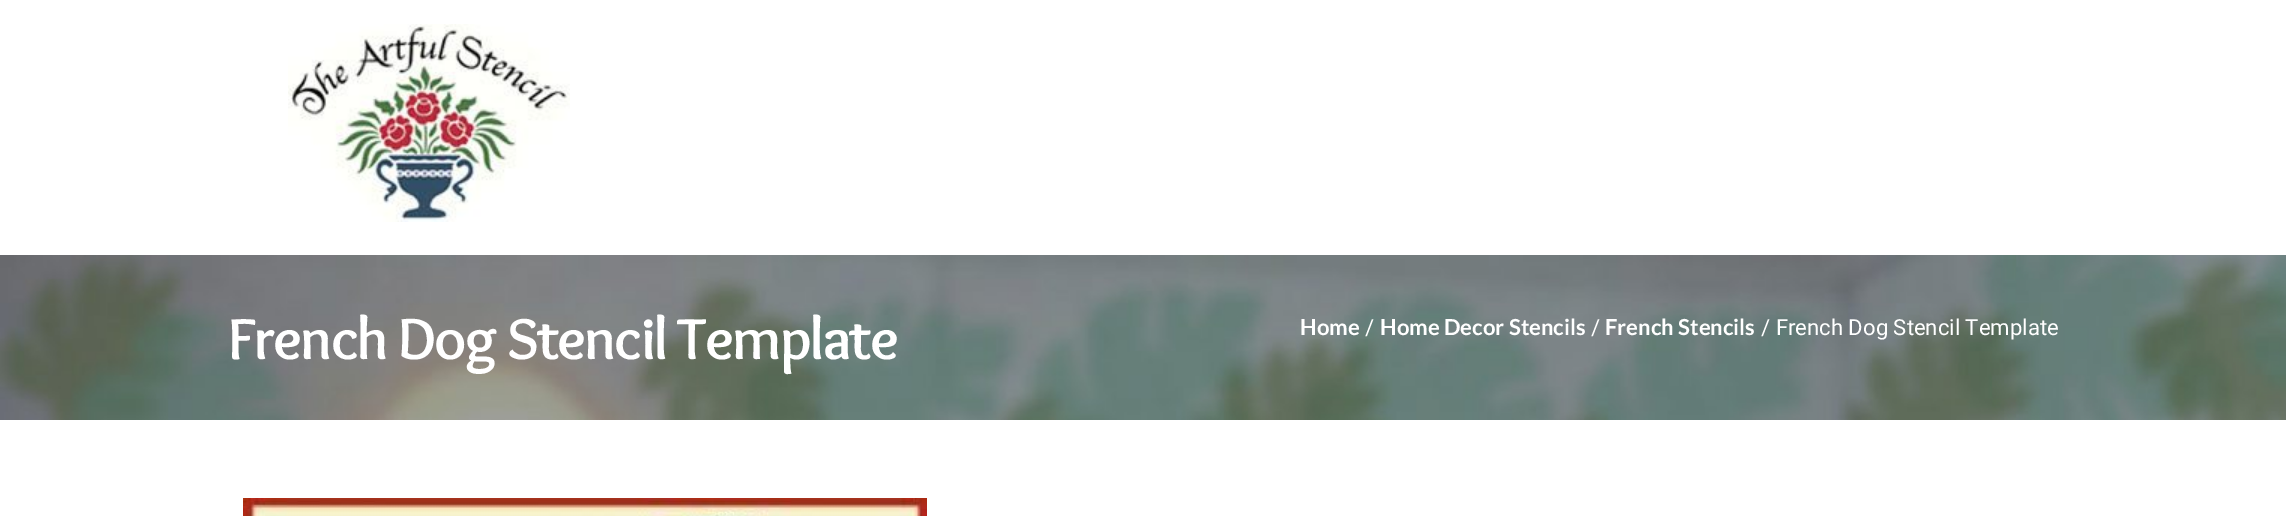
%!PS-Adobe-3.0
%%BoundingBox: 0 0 2286 516
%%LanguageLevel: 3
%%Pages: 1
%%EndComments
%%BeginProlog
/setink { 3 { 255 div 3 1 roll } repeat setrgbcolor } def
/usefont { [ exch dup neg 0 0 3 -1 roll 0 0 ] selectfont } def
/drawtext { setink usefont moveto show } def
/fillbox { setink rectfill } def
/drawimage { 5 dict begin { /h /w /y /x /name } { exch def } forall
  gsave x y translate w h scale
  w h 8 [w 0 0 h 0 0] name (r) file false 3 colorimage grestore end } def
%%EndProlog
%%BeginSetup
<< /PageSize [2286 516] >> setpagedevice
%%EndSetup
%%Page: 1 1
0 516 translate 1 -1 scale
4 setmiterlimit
0 0 2286 516 255 255 255 fillbox
(assets/img1.rgb) 288 24 282 198 drawimage
(assets/img2.rgb) 0 255 2286 165 drawimage
/Overlock-Bold 60 usefont
228 359 moveto -1.8 0 (French Dog Stencil Template) ashow
(Home) 1300 335 /Lato-Bold 22.1 255 255 255 drawtext
(/) 1365 335 /Roboto-Regular 22.1 255 255 255 drawtext
(Home Decor Stencils) 1380 335 /Lato-Bold 22.1 255 255 255 drawtext
(/) 1591 335 /Roboto-Regular 22.1 255 255 255 drawtext
(French Stencils) 1605 335 /Lato-Bold 22.1 255 255 255 drawtext
(/ French Dog Stencil Template) 1761 335 /Roboto-Regular 22.1 255 255 255 drawtext
(assets/img3.rgb) 243 498 684 18 drawimage
showpage
%%EOF
